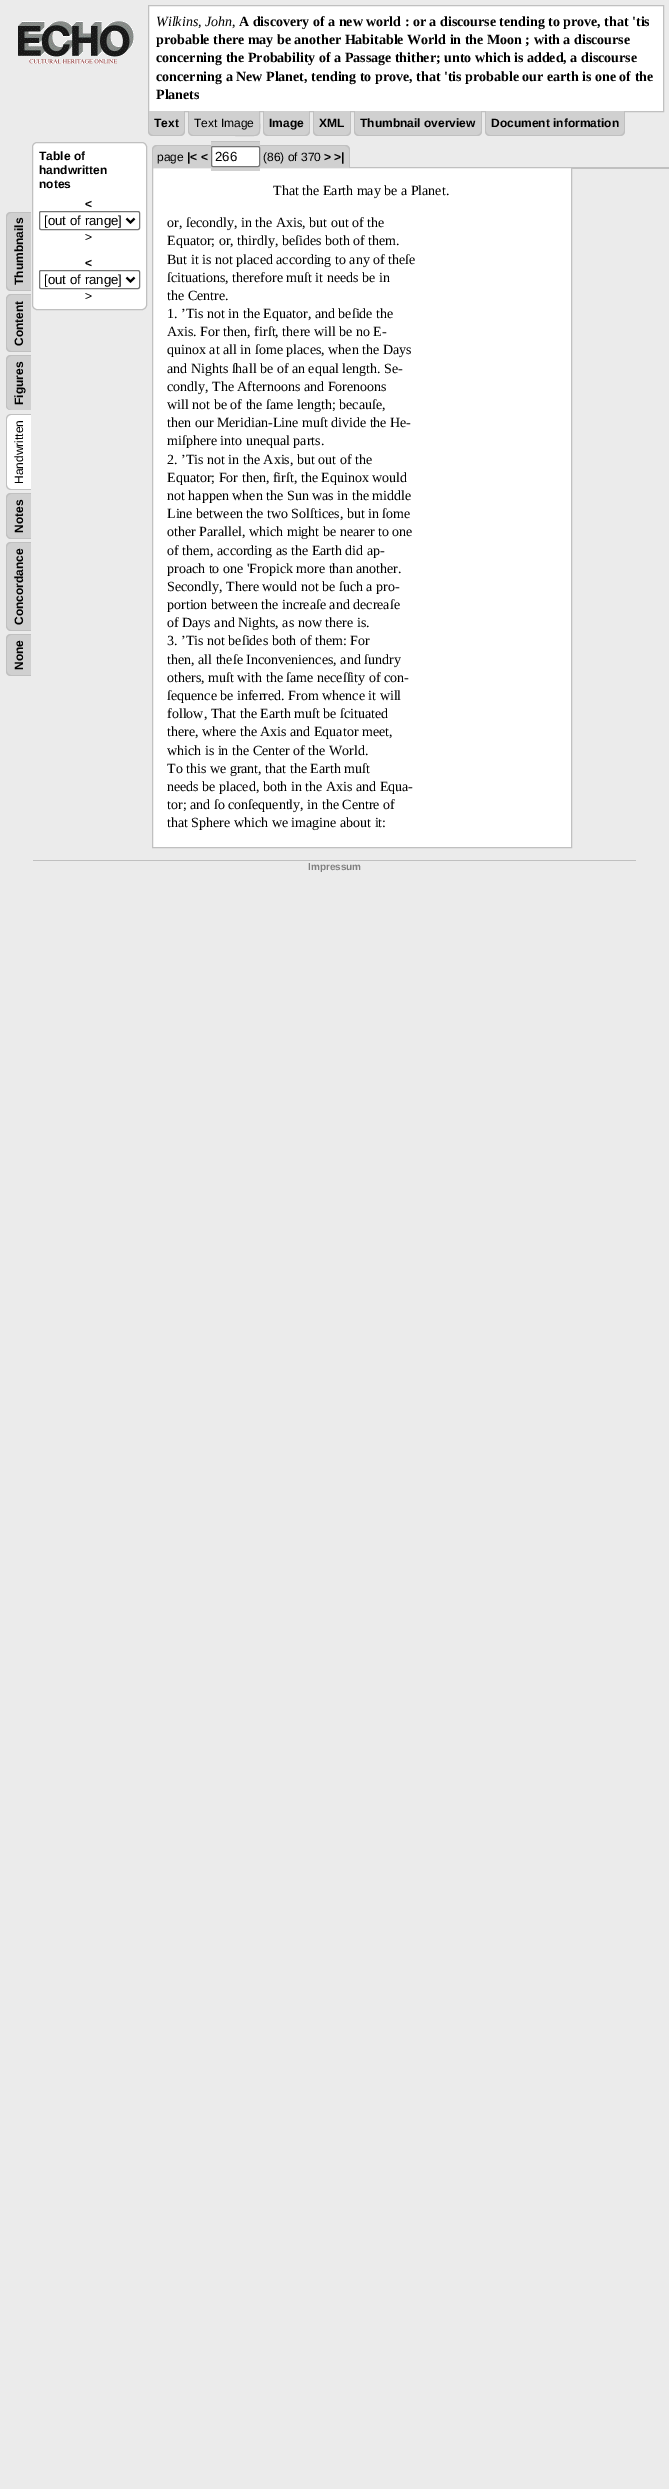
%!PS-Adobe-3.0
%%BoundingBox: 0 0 669 2489
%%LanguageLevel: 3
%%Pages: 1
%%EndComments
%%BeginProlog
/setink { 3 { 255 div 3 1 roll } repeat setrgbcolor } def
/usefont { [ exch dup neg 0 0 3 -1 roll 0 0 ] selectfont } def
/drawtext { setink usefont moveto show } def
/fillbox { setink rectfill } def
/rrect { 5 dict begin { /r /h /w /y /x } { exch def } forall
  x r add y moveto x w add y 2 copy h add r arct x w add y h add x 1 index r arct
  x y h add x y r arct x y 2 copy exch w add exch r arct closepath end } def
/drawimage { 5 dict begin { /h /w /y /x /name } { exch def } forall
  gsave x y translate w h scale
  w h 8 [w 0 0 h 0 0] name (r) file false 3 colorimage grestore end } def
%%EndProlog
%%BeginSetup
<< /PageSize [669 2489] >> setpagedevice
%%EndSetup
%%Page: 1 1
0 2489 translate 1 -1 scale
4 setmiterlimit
0 0 669 2489 235 235 235 fillbox
(assets/img1.rgb) 18 21 116 43 drawimage
255 255 255 setink
148.5 5.5 moveto 663.5 5.5 lineto 663.5 111.5 lineto 148.5 111.5 lineto closepath gsave fill grestore
192 192 192 setink
stroke
(Wilkins, John) 156 26 /LiberationSerif-Italic 14 0 0 0 drawtext
(,) 232 26 /LiberationSerif-Regular 14 0 0 0 drawtext
(A discovery of a new world : or a discourse tending to prove, that 'tis) 239 26 /LiberationSerif-Bold 14 0 0 0 drawtext
(probable there may be another Habitable World in the Moon ; with a discourse) 156 44 /LiberationSerif-Bold 14 0 0 0 drawtext
(concerning the Probability of a Passage thither; unto which is added, a discourse) 156 62 /LiberationSerif-Bold 14 0 0 0 drawtext
(concerning a New Planet, tending to prove, that 'tis probable our earth is one of the) 156 81 /LiberationSerif-Bold 14 0 0 0 drawtext
(Planets) 156 99 /LiberationSerif-Bold 14 0 0 0 drawtext
208 208 208 setink
148 111 moveto 185 111 lineto 185 131 lineto 185 134 183 136 180 136 curveto 153 136 lineto 150 136 148 134 148 131 curveto closepath fill
192 192 192 setink
148 111 moveto 185 111 lineto 185 131 lineto 185 134 183 136 180 136 curveto 153 136 lineto 150 136 148 134 148 131 curveto closepath 149 111 moveto 184 111 lineto 184 131 lineto 184 133 182 135 180 135 curveto 153 135 lineto 151 135 149 133 149 131 curveto closepath eofill
(Text) 154 127 /LiberationSans-Bold 12 0 0 0 drawtext
208 208 208 setink
188 111 moveto 260 111 lineto 260 131 lineto 260 134 258 136 255 136 curveto 193 136 lineto 190 136 188 134 188 131 curveto closepath fill
192 192 192 setink
188 111 moveto 260 111 lineto 260 140 265 136 234 136 curveto 192 136 lineto 190 135 188 133 188 131 curveto closepath 189 111 moveto 259 111 lineto 259 131 lineto 259 133 257 135 255 135 curveto 193 135 lineto 191 135 189 133 189 131 curveto closepath eofill
(Text Image) 194 127 /LiberationSans-Regular 12 0 0 0 drawtext
208 208 208 setink
263 111 moveto 310 111 lineto 310 131 lineto 310 134 308 136 305 136 curveto 268 136 lineto 265 136 263 134 263 131 curveto closepath fill
192 192 192 setink
263 111 moveto 310 111 lineto 310 131 lineto 310 134 308 136 305 136 curveto 268 136 lineto 265 136 263 134 263 131 curveto closepath 264 111 moveto 309 111 lineto 309 131 lineto 309 133 307 135 305 135 curveto 268 135 lineto 266 135 264 133 264 131 curveto closepath eofill
(Image) 269 127 /LiberationSans-Bold 12 0 0 0 drawtext
208 208 208 setink
313 111 moveto 351 111 lineto 351 131 lineto 351 134 349 136 346 136 curveto 318 136 lineto 315 136 313 134 313 131 curveto closepath fill
192 192 192 setink
313 111 moveto 351 111 lineto 351 131 lineto 351 134 349 136 346 136 curveto 318 136 lineto 315 136 313 134 313 131 curveto closepath 314 111 moveto 350 111 lineto 350 131 lineto 350 133 348 135 346 135 curveto 318 135 lineto 316 135 314 133 314 131 curveto closepath eofill
(XML) 319 127 /LiberationSans-Bold 12 0 0 0 drawtext
208 208 208 setink
354 111 moveto 482 111 lineto 482 131 lineto 482 134 480 136 477 136 curveto 359 136 lineto 356 136 354 134 354 131 curveto closepath fill
192 192 192 setink
354 111 moveto 482 111 lineto 482 131 lineto 482 134 480 136 477 136 curveto 359 136 lineto 356 136 354 134 354 131 curveto closepath 355 111 moveto 481 111 lineto 481 131 lineto 481 133 479 135 477 135 curveto 359 135 lineto 357 135 355 133 355 131 curveto closepath eofill
(Thumbnail overview) 360 127 /LiberationSans-Bold 12 0 0 0 drawtext
208 208 208 setink
485 111 moveto 625 111 lineto 625 131 lineto 625 134 623 136 620 136 curveto 490 136 lineto 487 136 485 134 485 131 curveto closepath fill
192 192 192 setink
485 111 moveto 625 111 lineto 625 131 lineto 625 134 623 136 620 136 curveto 490 136 lineto 487 136 485 134 485 131 curveto closepath 486 111 moveto 624 111 lineto 624 131 lineto 624 133 622 135 620 135 curveto 490 135 lineto 488 135 486 133 486 131 curveto closepath eofill
(Document information) 491 127 /LiberationSans-Bold 12 0 0 0 drawtext
208 208 208 setink
6 286 moveto 6 217 lineto 6 214 8 212 11 212 curveto 31 212 lineto 31 291 lineto 11 291 lineto 8 291 6 289 6 286 curveto closepath fill
192 192 192 setink
6 286 moveto 6 217 lineto 6 214 8 212 11 212 curveto 31 212 lineto 31 291 lineto 11 291 lineto 8 291 6 289 6 286 curveto closepath 7 286 moveto 7 217 lineto 7 215 9 213 11 213 curveto 31 213 lineto 31 290 lineto 11 290 lineto 9 290 7 288 7 286 curveto closepath eofill
0 0 0 setink
gsave 23 285 translate -90 rotate 0 0 moveto (Thumbnails) show grestore
208 208 208 setink
6 347 moveto 6 299 lineto 6 297 8 294 11 294 curveto 31 294 lineto 31 352 lineto 11 352 lineto 8 352 6 350 6 347 curveto closepath fill
192 192 192 setink
6 347 moveto 6 299 lineto 6 297 8 294 11 294 curveto 31 294 lineto 31 352 lineto 11 352 lineto 8 352 6 350 6 347 curveto closepath 7 347 moveto 7 299 lineto 7 297 9 295 11 295 curveto 31 295 lineto 31 351 lineto 11 351 lineto 9 351 7 349 7 347 curveto closepath eofill
0 0 0 setink
gsave 23 346 translate -90 rotate 0 0 moveto (Content) show grestore
208 208 208 setink
6 406 moveto 6 360 lineto 6 357 8 355 11 355 curveto 31 355 lineto 31 410 lineto 11 410 lineto 8 410 6 408 6 406 curveto closepath fill
192 192 192 setink
6 406 moveto 6 360 lineto 6 357 8 355 11 355 curveto 31 355 lineto 31 410 lineto 11 410 lineto 8 410 6 408 6 406 curveto closepath 7 406 moveto 7 360 lineto 7 358 9 356 11 356 curveto 31 356 lineto 31 410 lineto 11 410 lineto 9 410 7 408 7 406 curveto closepath eofill
0 0 0 setink
gsave 23 405 translate -90 rotate 0 0 moveto (Figures) show grestore
255 255 255 setink
6 485 moveto 6 419 lineto 6 416 8 414 11 414 curveto 31 414 lineto 31 490 lineto 11 490 lineto 8 490 6 488 6 485 curveto closepath fill
192 192 192 setink
6 485 moveto 6 419 lineto 6 416 8 414 11 414 curveto 31 414 lineto 31 490 lineto 11 490 lineto 8 490 6 488 6 485 curveto closepath 7 485 moveto 7 419 lineto 7 417 9 415 11 415 curveto 31 415 lineto 31 489 lineto 11 489 lineto 9 489 7 487 7 485 curveto closepath eofill
/LiberationSans-Regular 12 usefont
0 0 0 setink
gsave 23 484 translate -90 rotate 0 0 moveto (Handwritten) show grestore
208 208 208 setink
6 534 moveto 6 498 lineto 6 495 8 493 11 493 curveto 31 493 lineto 31 539 lineto 11 539 lineto 8 539 6 536 6 534 curveto closepath fill
192 192 192 setink
6 534 moveto 6 498 lineto 6 495 8 493 11 493 curveto 31 493 lineto 31 539 lineto 11 539 lineto 8 539 6 536 6 534 curveto closepath 7 534 moveto 7 498 lineto 7 496 9 494 11 494 curveto 31 494 lineto 31 538 lineto 11 538 lineto 9 538 7 536 7 534 curveto closepath eofill
/LiberationSans-Bold 12 usefont
0 0 0 setink
gsave 23 533 translate -90 rotate 0 0 moveto (Notes) show grestore
208 208 208 setink
6 626 moveto 6 547 lineto 6 544 8 542 11 542 curveto 31 542 lineto 31 631 lineto 11 631 lineto 8 631 6 628 6 626 curveto closepath fill
192 192 192 setink
6 626 moveto 6 547 lineto 6 544 8 542 11 542 curveto 31 542 lineto 31 631 lineto 11 631 lineto 8 631 6 628 6 626 curveto closepath 7 626 moveto 7 547 lineto 7 545 9 543 11 543 curveto 31 543 lineto 31 630 lineto 11 630 lineto 9 630 7 628 7 626 curveto closepath eofill
0 0 0 setink
gsave 23 625 translate -90 rotate 0 0 moveto (Concordance) show grestore
208 208 208 setink
6 671 moveto 6 639 lineto 6 636 8 634 11 634 curveto 31 634 lineto 31 676 lineto 11 676 lineto 8 676 6 674 6 671 curveto closepath fill
192 192 192 setink
6 671 moveto 6 639 lineto 6 636 8 634 11 634 curveto 31 634 lineto 31 676 lineto 11 676 lineto 8 676 6 674 6 671 curveto closepath 7 671 moveto 7 639 lineto 7 637 9 635 11 635 curveto 31 635 lineto 31 675 lineto 11 675 lineto 9 675 7 673 7 671 curveto closepath eofill
0 0 0 setink
gsave 23 670 translate -90 rotate 0 0 moveto (None) show grestore
255 255 255 setink
32.5 142.5 114 167 4.5 rrect gsave fill grestore
192 192 192 setink
stroke
(Table of) 39 160 /LiberationSans-Bold 12 0 0 0 drawtext
(handwritten) 39 174 /LiberationSans-Bold 12 0 0 0 drawtext
(notes) 39 188 /LiberationSans-Bold 12 0 0 0 drawtext
(<) 85 208 /LiberationSans-Bold 12 0 0 0 drawtext
118 118 118 setink
39.5 211.5 100 18 1.5 rrect stroke
0 0 0 setink
2 setlinewidth
126.5 218.5 moveto 130.5 222.5 lineto 134.5 218.5 lineto stroke
([out of range]) 44 225 /LiberationSans-Regular 13.25 0 0 0 drawtext
(>) 85 241 /LiberationSans-Regular 12 0 0 0 drawtext
(<) 85 267 /LiberationSans-Bold 12 0 0 0 drawtext
118 118 118 setink
1 setlinewidth
39.5 270.5 100 18 1.5 rrect stroke
0 0 0 setink
2 setlinewidth
126.5 277.5 moveto 130.5 281.5 lineto 134.5 277.5 lineto stroke
([out of range]) 44 284 /LiberationSans-Regular 13.25 0 0 0 drawtext
(>) 85 300 /LiberationSans-Regular 12 0 0 0 drawtext
255 255 255 setink
152.5 167.5 moveto 571.5 167.5 lineto 571.5 847.5 lineto 152.5 847.5 lineto closepath gsave fill grestore
192 192 192 setink
1 setlinewidth
stroke
208 208 208 setink
157 145 moveto 187 145 lineto 187 168 lineto 152 168 lineto 152 150 lineto 152 147 154 145 157 145 curveto closepath fill
192 192 192 setink
157 145 moveto 187 145 lineto 187 168 lineto 152 168 lineto 152 150 lineto 152 147 154 145 157 145 curveto closepath 157 146 moveto 187 146 lineto 187 168 lineto 153 168 lineto 153 150 lineto 153 148 155 146 157 146 curveto closepath eofill
187 146 10 22 208 208 208 fillbox
187 145 10 1 192 192 192 fillbox
197 145 14 23 208 208 208 fillbox
197 145 14 1 192 192 192 fillbox
211 142 49 29 208 208 208 fillbox
211 141 49 1 192 192 192 fillbox
260 145 3 23 208 208 208 fillbox
260 145 64 1 192 192 192 fillbox
263 146 61 22 208 208 208 fillbox
324 145 11 23 208 208 208 fillbox
324 145 11 1 192 192 192 fillbox
208 208 208 setink
335 145 moveto 345 145 lineto 348 145 350 147 350 150 curveto 350 168 lineto 335 168 lineto closepath fill
192 192 192 setink
335 145 moveto 345 145 lineto 348 145 350 147 350 150 curveto 350 168 lineto 335 168 lineto closepath 335 146 moveto 345 146 lineto 347 146 349 148 349 150 curveto 349 168 lineto 335 168 lineto closepath eofill
(page) 157 161 /LiberationSans-Regular 12 0 0 0 drawtext
(|< <) 187 161 /LiberationSans-Bold 12 0 0 0 drawtext
255 255 255 setink
211.5 146.5 48 20 1.5 rrect gsave fill grestore
118 118 118 setink
stroke
(266) 215 161 /LiberationSans-Regular 13.25 0 0 0 drawtext
(\(86\) of 370) 263 161 /LiberationSans-Regular 12 0 0 0 drawtext
(> >|) 324 161 /LiberationSans-Bold 12 0 0 0 drawtext
572 167 97 2 192 192 192 fillbox
(That the Earth may be a Planet.) 273 195 /LiberationSerif-Regular 14 0 0 0 drawtext
(or, ſecondly, in the Axis, but out of the) 167 227 /LiberationSerif-Regular 14 0 0 0 drawtext
(Equator; or, thirdly, beſides both of them.) 167 245 /LiberationSerif-Regular 14 0 0 0 drawtext
(But it is not placed according to any of theſe) 167 264 /LiberationSerif-Regular 14 0 0 0 drawtext
(ſcituations, therefore muſt it needs be in) 167 282 /LiberationSerif-Regular 14 0 0 0 drawtext
(the Centre.) 167 300 /LiberationSerif-Regular 14 0 0 0 drawtext
(1. ’Tis not in the Equator, and beſide the) 167 318 /LiberationSerif-Regular 14 0 0 0 drawtext
(Axis. For then, firſt, there will be no E-) 167 336 /LiberationSerif-Regular 14 0 0 0 drawtext
(quinox at all in ſome places, when the Days) 167 354 /LiberationSerif-Regular 14 0 0 0 drawtext
(and Nights ſhall be of an equal length. Se-) 167 373 /LiberationSerif-Regular 14 0 0 0 drawtext
(condly, The Afternoons and Forenoons) 167 391 /LiberationSerif-Regular 14 0 0 0 drawtext
(will not be of the ſame length; becauſe,) 167 409 /LiberationSerif-Regular 14 0 0 0 drawtext
(then our Meridian-Line muſt divide the He-) 167 427 /LiberationSerif-Regular 14 0 0 0 drawtext
(miſphere into unequal parts.) 167 445 /LiberationSerif-Regular 14 0 0 0 drawtext
(2. ’Tis not in the Axis, but out of the) 167 464 /LiberationSerif-Regular 14 0 0 0 drawtext
(Equator; For then, firſt, the Equinox would) 167 482 /LiberationSerif-Regular 14 0 0 0 drawtext
(not happen when the Sun was in the middle) 167 500 /LiberationSerif-Regular 14 0 0 0 drawtext
(Line between the two Solſtices, but in ſome) 167 518 /LiberationSerif-Regular 14 0 0 0 drawtext
(other Parallel, which might be nearer to one) 167 536 /LiberationSerif-Regular 14 0 0 0 drawtext
(of them, according as the Earth did ap-) 167 555 /LiberationSerif-Regular 14 0 0 0 drawtext
(proach to one 'Fropick more than another.) 167 573 /LiberationSerif-Regular 14 0 0 0 drawtext
(Secondly, There would not be ſuch a pro-) 167 591 /LiberationSerif-Regular 14 0 0 0 drawtext
(portion between the increaſe and decreaſe) 167 609 /LiberationSerif-Regular 14 0 0 0 drawtext
(of Days and Nights, as now there is.) 167 627 /LiberationSerif-Regular 14 0 0 0 drawtext
(3. ’Tis not beſides both of them: For) 167 645 /LiberationSerif-Regular 14 0 0 0 drawtext
(then, all theſe Inconveniences, and ſundry) 167 664 /LiberationSerif-Regular 14 0 0 0 drawtext
(others, muſt with the ſame neceſſity of con-) 167 682 /LiberationSerif-Regular 14 0 0 0 drawtext
(ſequence be inferred. From whence it will) 167 700 /LiberationSerif-Regular 14 0 0 0 drawtext
(follow, That the Earth muſt be ſcituated) 167 718 /LiberationSerif-Regular 14 0 0 0 drawtext
(there, where the Axis and Equator meet,) 167 736 /LiberationSerif-Regular 14 0 0 0 drawtext
(which is in the Center of the World.) 167 755 /LiberationSerif-Regular 14 0 0 0 drawtext
(To this we grant, that the Earth muſt) 167 773 /LiberationSerif-Regular 14 0 0 0 drawtext
(needs be placed, both in the Axis and Equa-) 167 791 /LiberationSerif-Regular 14 0 0 0 drawtext
(tor; and ſo conſequently, in the Centre of) 167 809 /LiberationSerif-Regular 14 0 0 0 drawtext
(that Sphere which we imagine about it:) 167 827 /LiberationSerif-Regular 14 0 0 0 drawtext
33 860 603 1 192 192 192 fillbox
(Impressum) 308 870 /LiberationSans-Bold 10 128 128 128 drawtext
showpage
%%EOF
